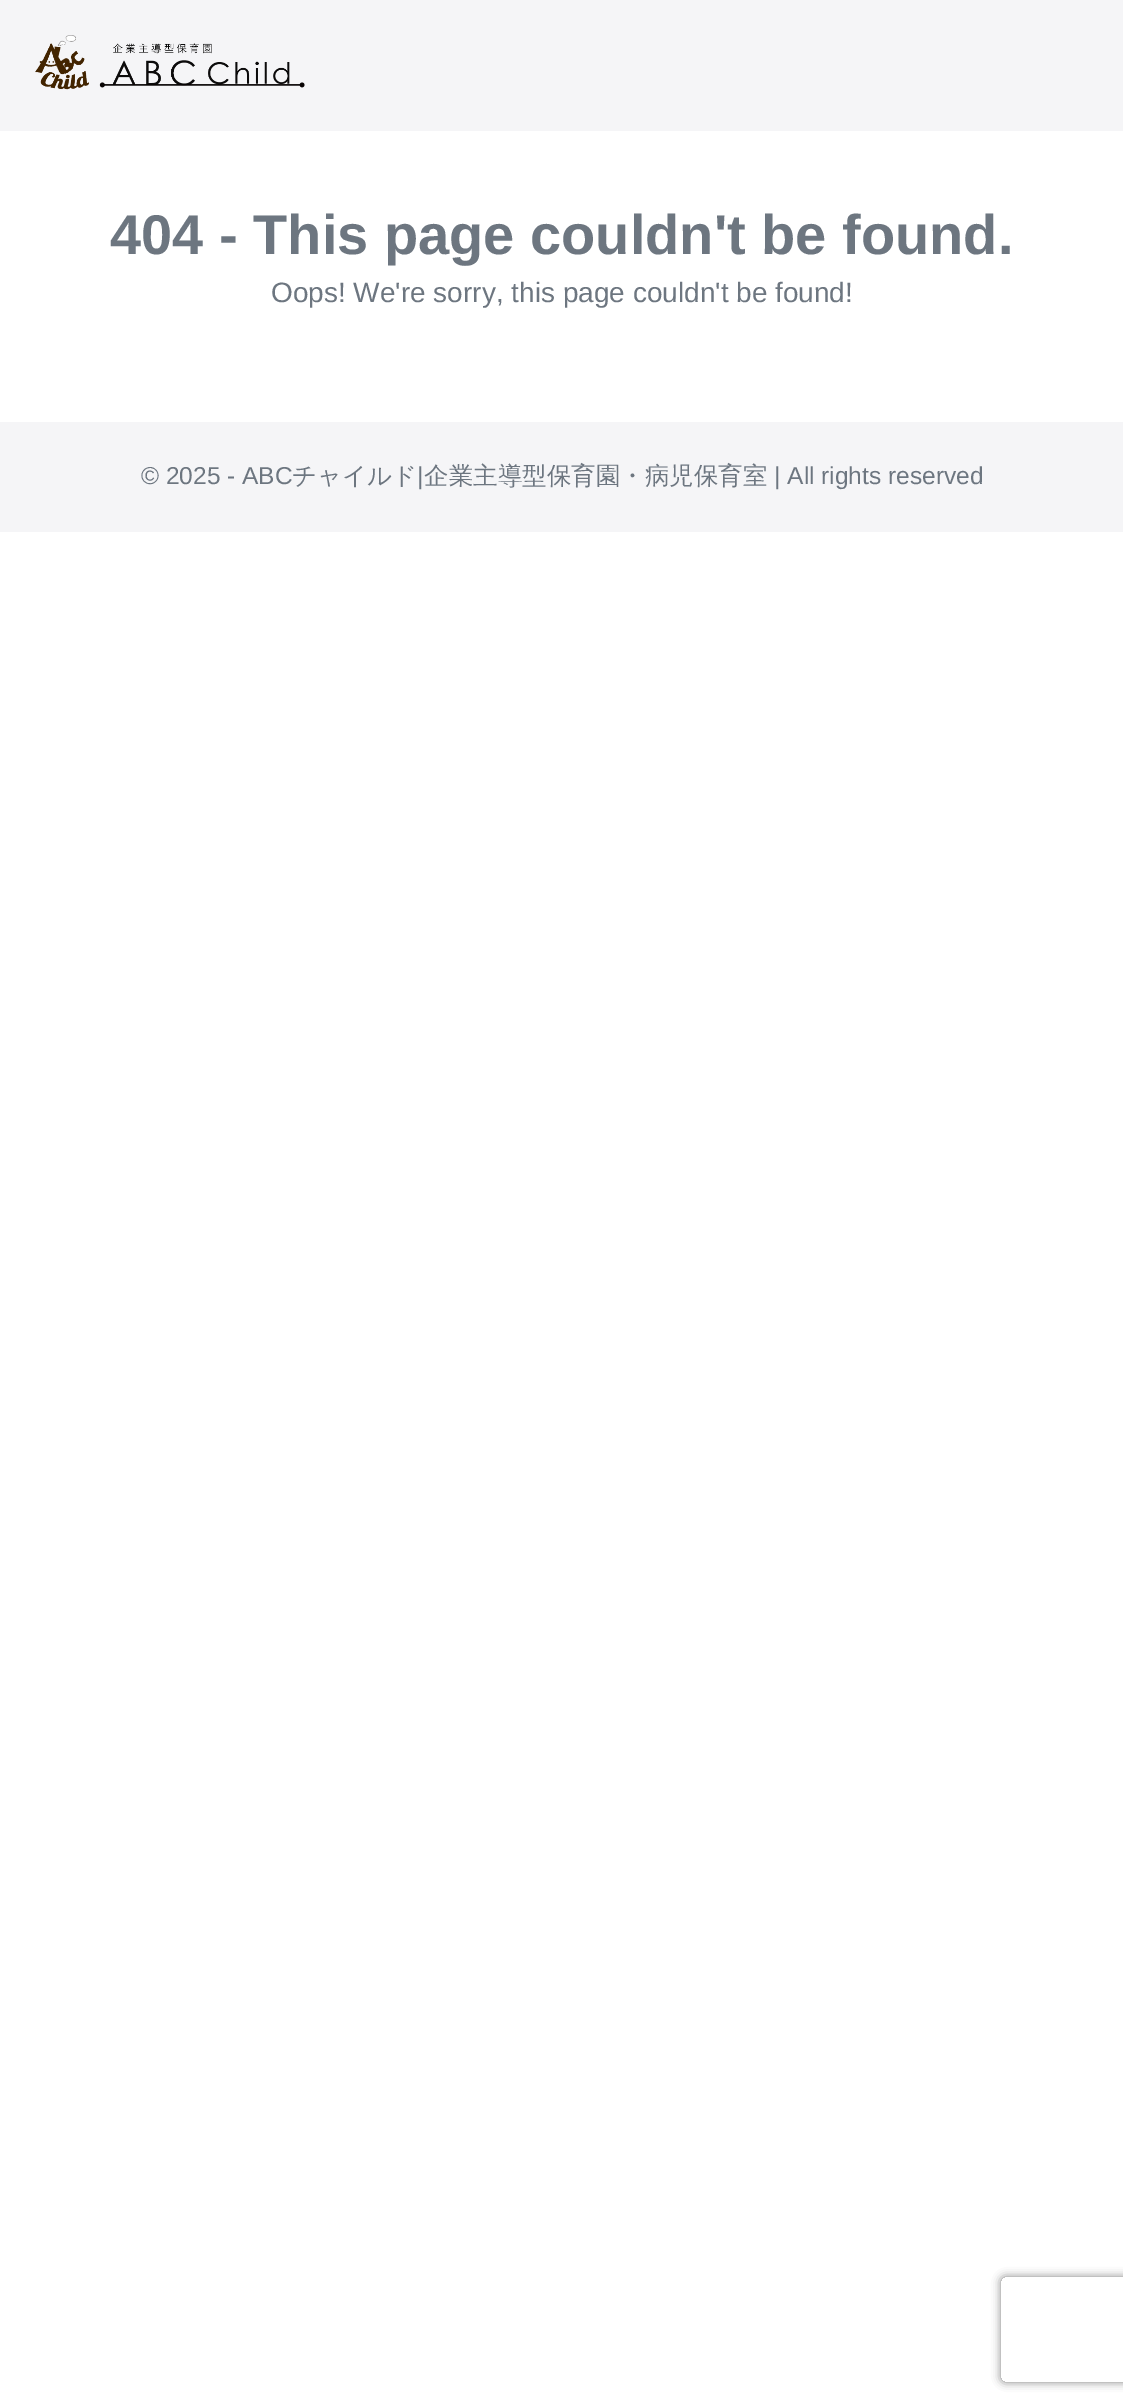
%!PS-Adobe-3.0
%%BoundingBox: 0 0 1123 2405
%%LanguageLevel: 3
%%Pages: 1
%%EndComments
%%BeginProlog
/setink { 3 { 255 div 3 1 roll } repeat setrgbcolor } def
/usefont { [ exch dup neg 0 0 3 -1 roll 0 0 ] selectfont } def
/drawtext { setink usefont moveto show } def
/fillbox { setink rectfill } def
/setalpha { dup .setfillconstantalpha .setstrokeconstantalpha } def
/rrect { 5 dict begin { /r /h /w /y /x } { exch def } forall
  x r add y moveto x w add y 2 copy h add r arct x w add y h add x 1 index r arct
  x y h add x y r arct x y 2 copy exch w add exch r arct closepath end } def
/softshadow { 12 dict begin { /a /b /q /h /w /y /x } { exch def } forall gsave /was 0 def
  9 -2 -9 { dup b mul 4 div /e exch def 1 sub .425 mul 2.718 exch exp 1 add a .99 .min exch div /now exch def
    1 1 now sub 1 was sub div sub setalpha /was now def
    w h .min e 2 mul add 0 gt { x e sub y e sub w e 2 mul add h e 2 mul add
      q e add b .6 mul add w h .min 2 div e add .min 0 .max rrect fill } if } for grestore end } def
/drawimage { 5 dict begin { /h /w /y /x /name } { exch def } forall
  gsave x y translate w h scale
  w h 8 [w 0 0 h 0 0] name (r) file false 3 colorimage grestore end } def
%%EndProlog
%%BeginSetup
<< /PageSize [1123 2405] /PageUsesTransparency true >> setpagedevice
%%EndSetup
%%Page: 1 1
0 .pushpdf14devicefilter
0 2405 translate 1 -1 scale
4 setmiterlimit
0 0 1123 2405 255 255 255 fillbox
0 0 1123 131 245 245 247 fillbox
(assets/img1.rgb) 35 35 270 55 drawimage
(404 - This page couldn't be found.) 110 254 /LiberationSans-Bold 56 109 118 128 drawtext
(Oops! We're sorry, this page couldn't be found!) 271 302 /LiberationSans-Regular 28 109 118 128 drawtext
0 422 1123 110 245 245 247 fillbox
(© 2025 - ABC) 141 484 /LiberationSans-Regular 24.5 109 118 128 drawtext
(チャイルド) 292 484 /WenQuanYiZenHei-Medium 24.5 109 118 128 drawtext
(|) 417 484 /LiberationSans-Regular 24.5 109 118 128 drawtext
(企業主導型保育園・病児保育室) 424 484 /WenQuanYiZenHei-Medium 24.5 109 118 128 drawtext
(| All rights reserved) 774 484 /LiberationSans-Regular 24.5 109 118 128 drawtext
gsave
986 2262 moveto 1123 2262 lineto 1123 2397 lineto 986 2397 lineto closepath 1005 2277 moveto 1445 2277 lineto 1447 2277 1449 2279 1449 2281 curveto 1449 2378 lineto 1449 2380 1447 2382 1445 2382 curveto 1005 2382 lineto 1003 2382 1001 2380 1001 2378 curveto 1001 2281 lineto 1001 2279 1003 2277 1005 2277 curveto closepath eoclip newpath
128 128 128 setink
1001 2277 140 105 4 4.5 1 softshadow
grestore
.poppdf14devicefilter showpage
%%EOF
